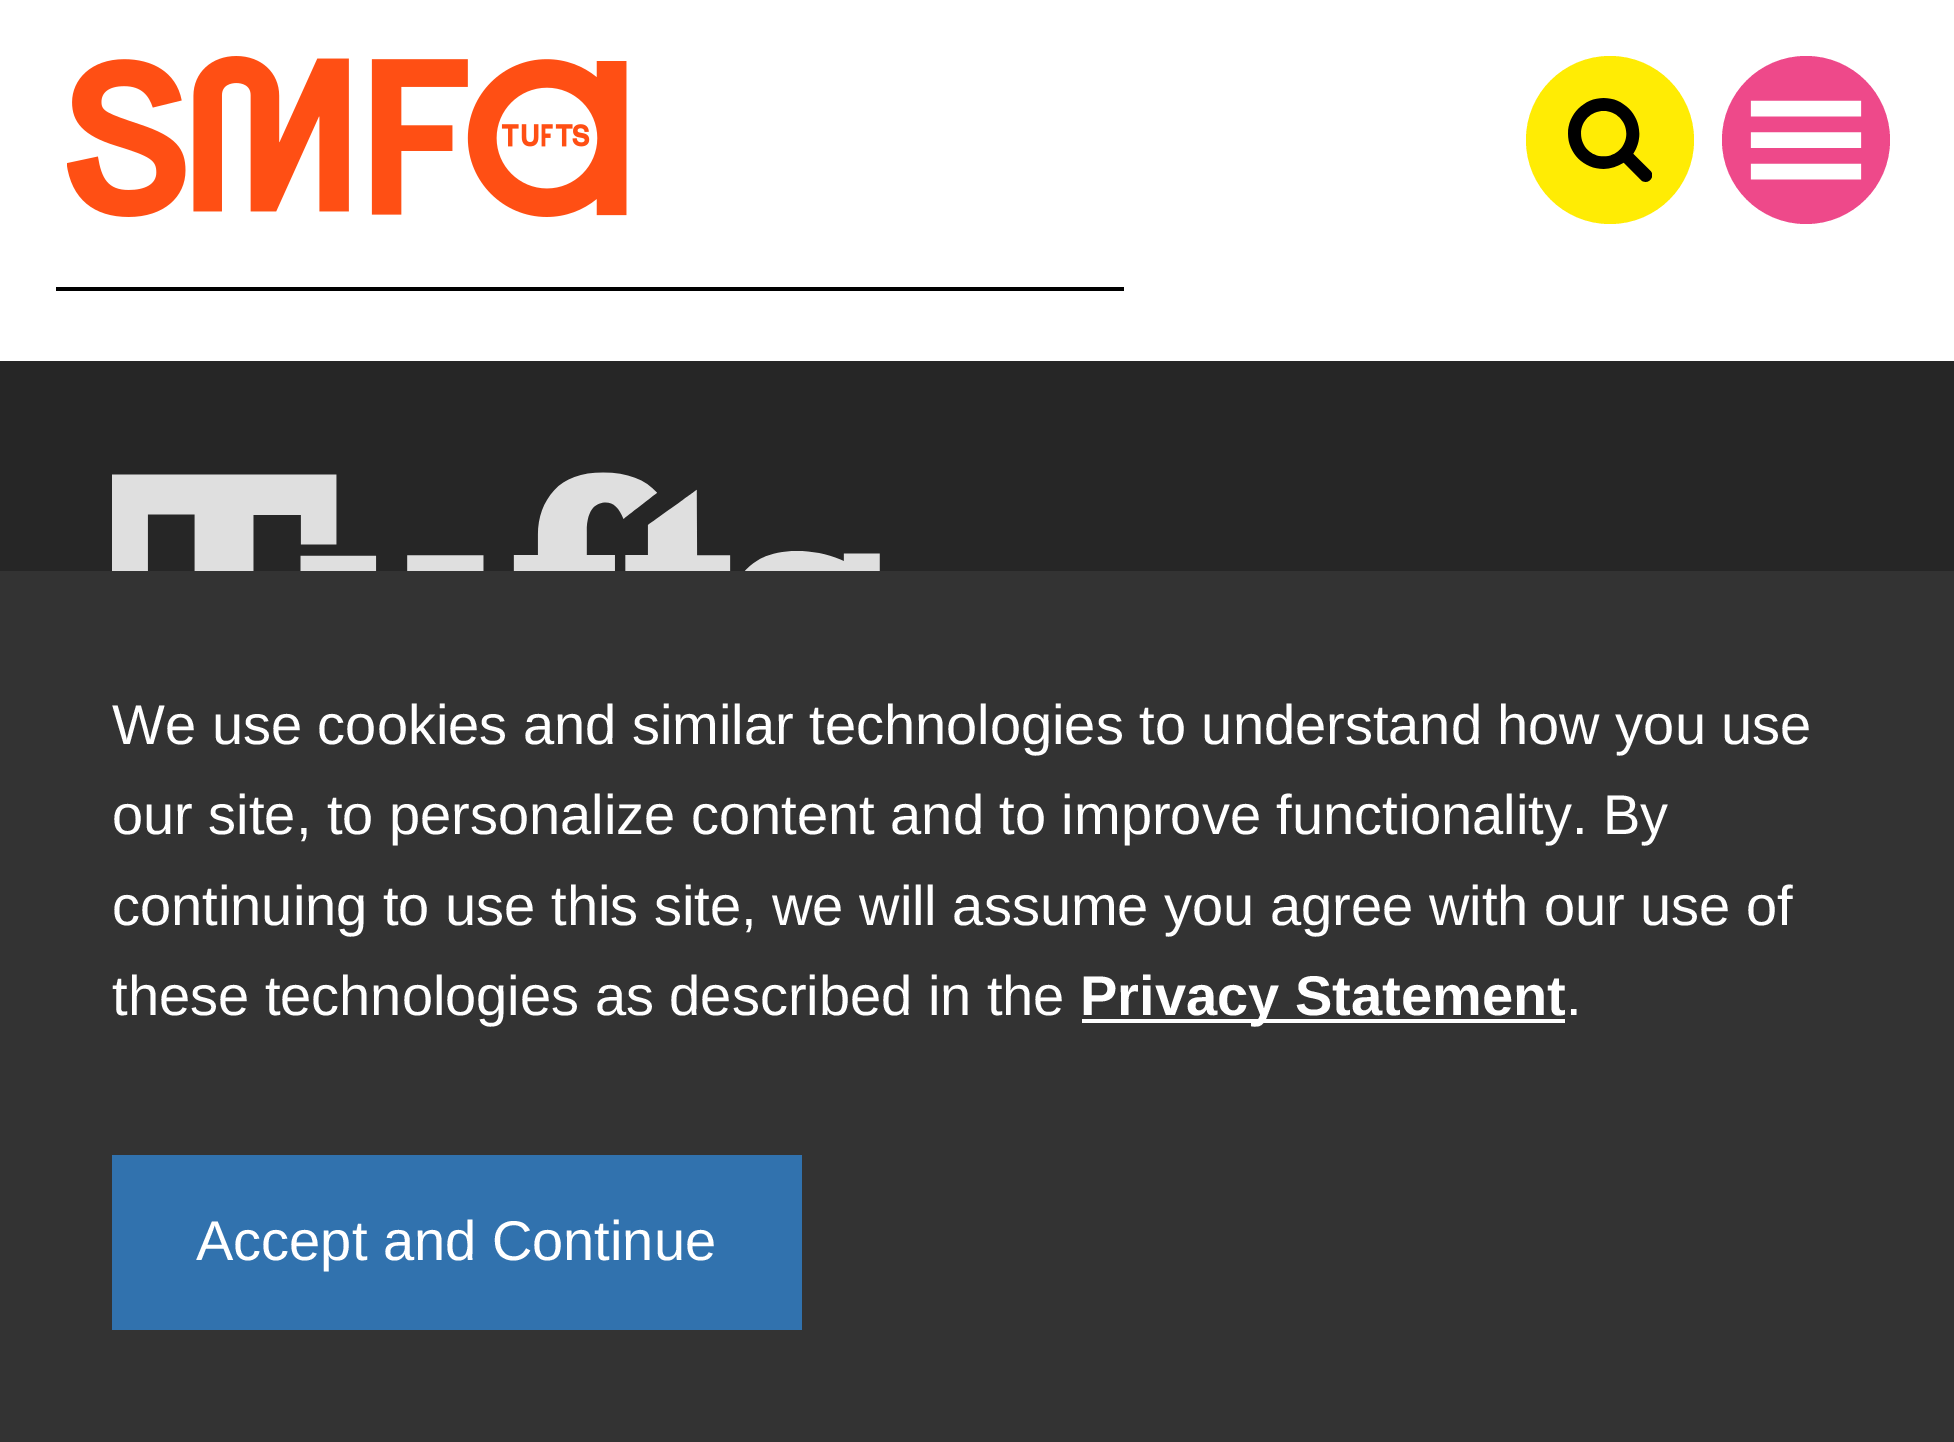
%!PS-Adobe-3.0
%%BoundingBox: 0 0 1954 1442
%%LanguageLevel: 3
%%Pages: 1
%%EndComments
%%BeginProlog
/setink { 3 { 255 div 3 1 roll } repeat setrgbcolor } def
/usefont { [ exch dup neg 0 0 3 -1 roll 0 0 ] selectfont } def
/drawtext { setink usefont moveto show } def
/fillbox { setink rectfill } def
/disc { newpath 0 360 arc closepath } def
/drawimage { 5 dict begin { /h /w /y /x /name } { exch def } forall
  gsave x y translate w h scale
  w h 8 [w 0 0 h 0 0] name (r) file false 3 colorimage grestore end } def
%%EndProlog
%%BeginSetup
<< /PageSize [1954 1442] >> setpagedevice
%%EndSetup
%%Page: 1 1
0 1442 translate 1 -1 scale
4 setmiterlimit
0 0 1954 1442 255 255 255 fillbox
(assets/img1.rgb) 67 56 560 161 drawimage
255 236 4 setink
1610 140 84 disc fill
(assets/img2.rgb) 1568 98 84 84 drawimage
238 73 138 setink
1806 140 84 disc fill
(assets/img3.rgb) 1750 100 112 80 drawimage
56 287 1068 4 0 0 0 fillbox
0 361 1954 210 38 38 38 fillbox
(assets/img4.rgb) 112 472 768 99 drawimage
0 571 1954 871 51 51 51 fillbox
(We use cookies and similar technologies to understand how you use) 112 744 /LiberationSans-Regular 56 255 255 255 drawtext
(our site, to personalize content and to improve functionality. By) 112 834 /LiberationSans-Regular 56 255 255 255 drawtext
(continuing to use this site, we will assume you agree with our use of) 112 925 /LiberationSans-Regular 56 255 255 255 drawtext
(these technologies as described in the) 112 1015 /LiberationSans-Regular 56 255 255 255 drawtext
1082 1019 483 4 255 255 255 fillbox
(Privacy Statement) 1080 1015 /LiberationSans-Bold 56 255 255 255 drawtext
(.) 1566 1015 /LiberationSans-Regular 56 255 255 255 drawtext
112 1155 690 175 49 114 174 fillbox
(Accept and Continue) 196 1260 /LiberationSans-Regular 56 255 255 255 drawtext
showpage
%%EOF
